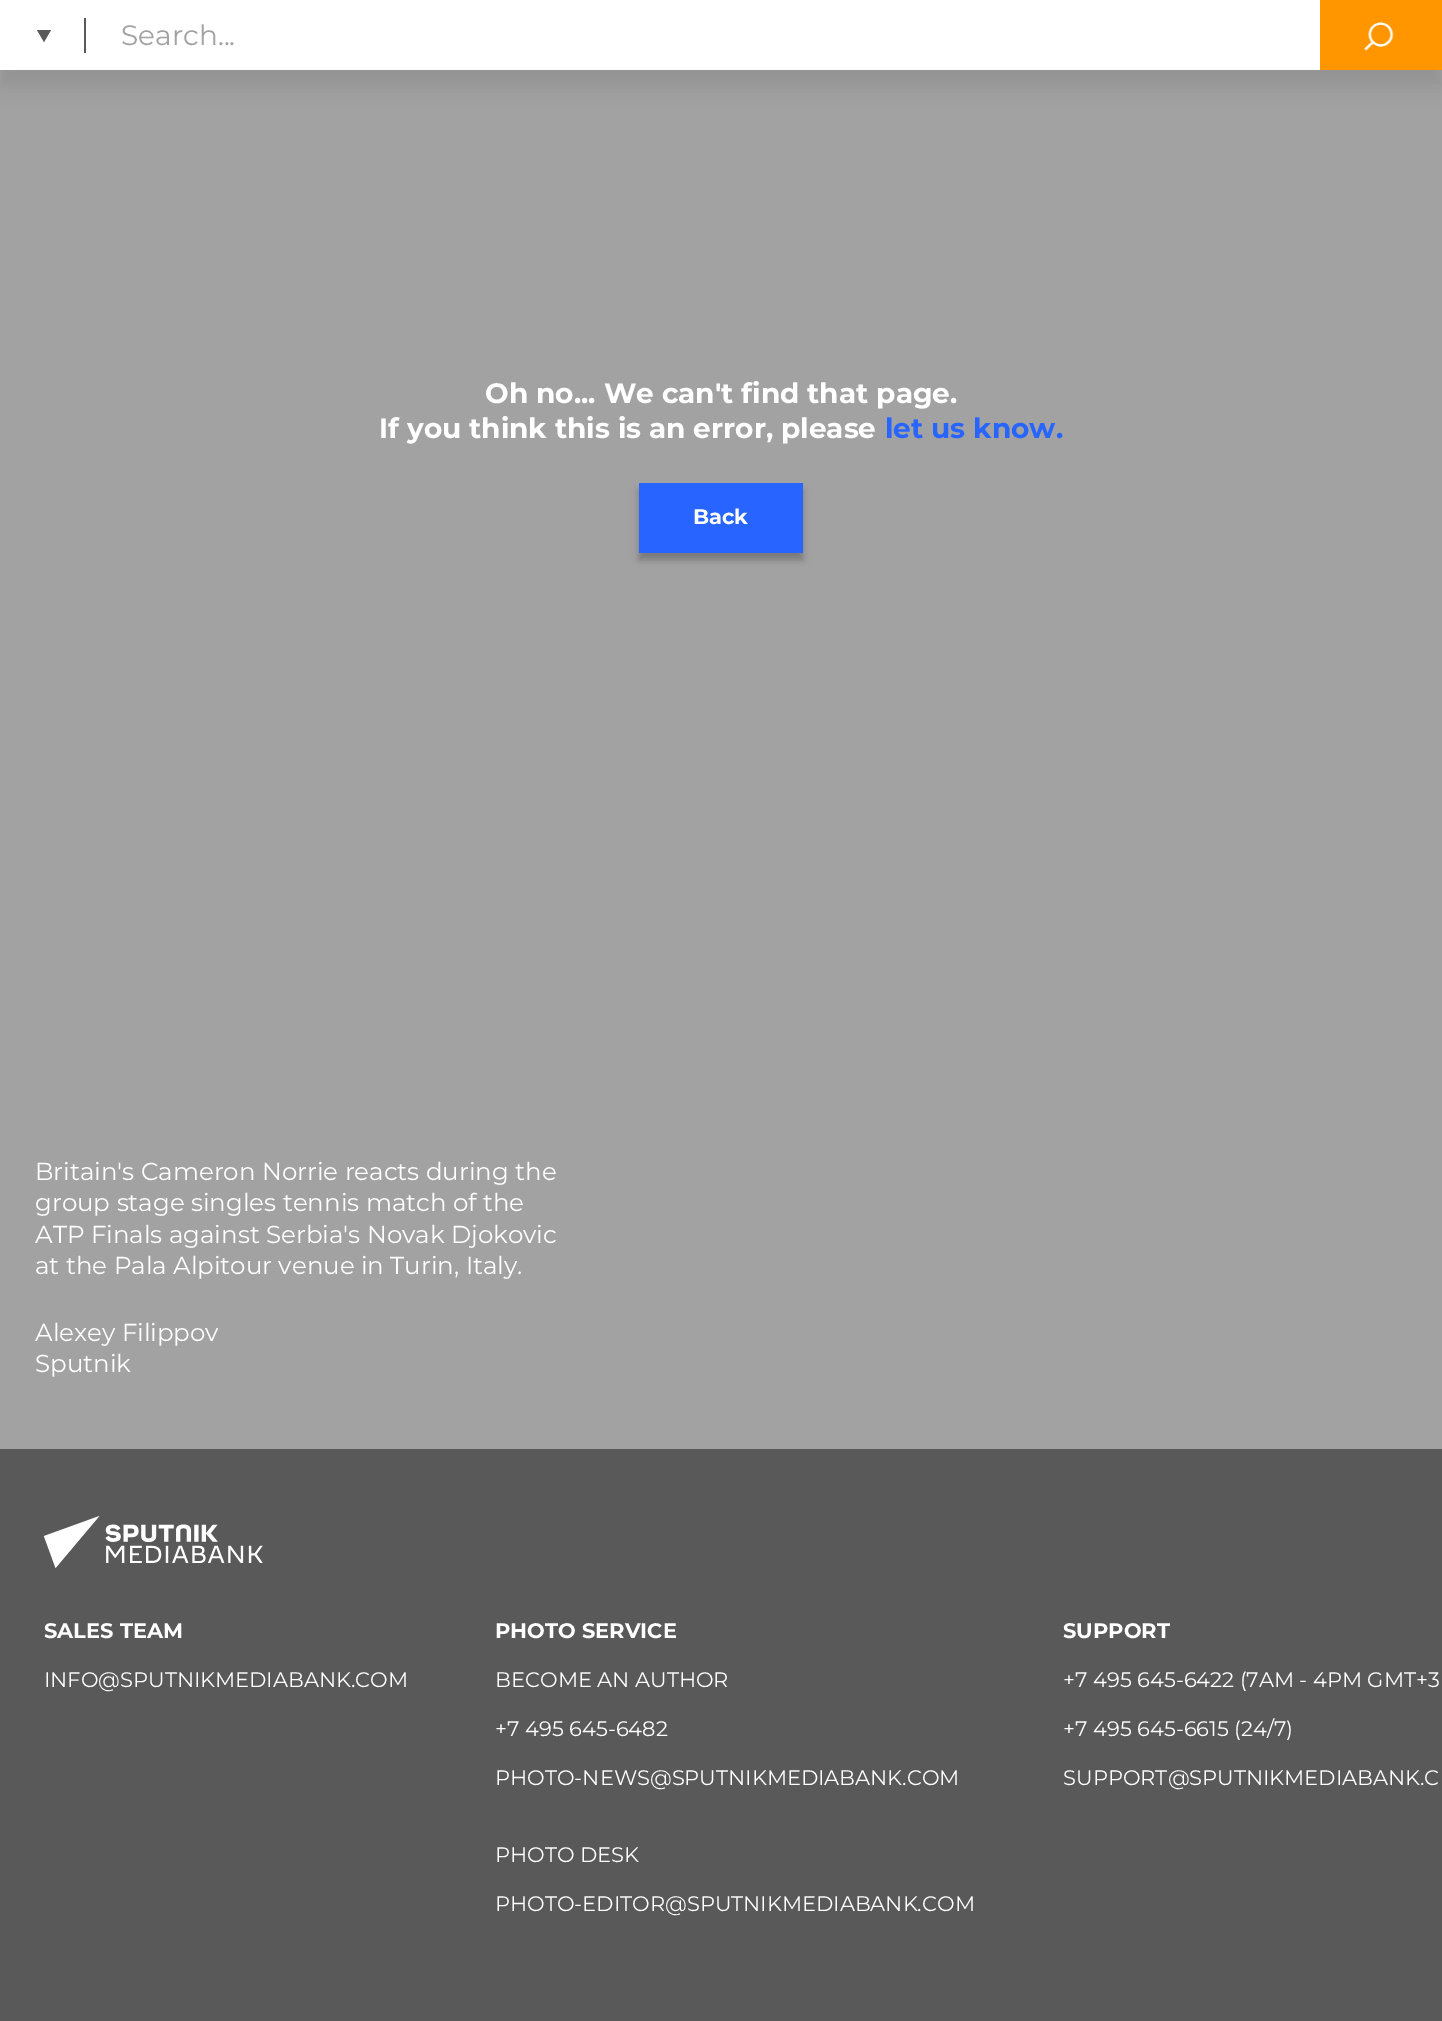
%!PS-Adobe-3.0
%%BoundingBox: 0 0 1442 2021
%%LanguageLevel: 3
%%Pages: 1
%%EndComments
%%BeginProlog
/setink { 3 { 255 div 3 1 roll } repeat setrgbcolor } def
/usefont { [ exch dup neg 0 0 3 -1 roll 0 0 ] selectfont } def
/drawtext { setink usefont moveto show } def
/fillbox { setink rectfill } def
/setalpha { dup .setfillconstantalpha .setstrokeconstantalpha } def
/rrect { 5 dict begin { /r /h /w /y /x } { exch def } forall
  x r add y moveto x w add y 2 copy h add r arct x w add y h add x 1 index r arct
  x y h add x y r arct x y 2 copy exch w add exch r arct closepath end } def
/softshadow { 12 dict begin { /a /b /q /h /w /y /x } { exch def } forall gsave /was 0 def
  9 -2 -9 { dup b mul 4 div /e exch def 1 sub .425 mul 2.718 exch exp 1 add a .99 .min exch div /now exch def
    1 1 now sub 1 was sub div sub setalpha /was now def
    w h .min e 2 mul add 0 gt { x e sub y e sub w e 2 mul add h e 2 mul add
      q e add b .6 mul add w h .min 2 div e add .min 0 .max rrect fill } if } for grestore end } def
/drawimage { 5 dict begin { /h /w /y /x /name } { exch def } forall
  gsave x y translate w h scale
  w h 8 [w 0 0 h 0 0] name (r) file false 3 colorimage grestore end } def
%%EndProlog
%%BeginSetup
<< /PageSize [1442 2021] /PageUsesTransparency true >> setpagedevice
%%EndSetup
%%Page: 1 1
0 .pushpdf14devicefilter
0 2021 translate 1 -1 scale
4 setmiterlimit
0 0 1442 2021 163 162 162 fillbox
0 0 0 setink
0 -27 1442 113 0 9 0.1 softshadow
0 0 1320 70 255 255 255 fillbox
89 89 89 setink
37 30 moveto 51 30 lineto 44 42 lineto closepath fill
84 18 2 35 89 89 89 fillbox
(Search...) 121 45 /Montserrat-Regular 28 163 162 162 drawtext
1320 0 122 70 255 150 0 fillbox
(assets/img1.rgb) 1364 22 30 29 drawimage
(Oh no... We can't find that page.) 485 403 /Montserrat-Bold 28 255 255 255 drawtext
(If you think this is an error, please) 379 438 /Montserrat-Bold 28 255 255 255 drawtext
(let us know.) 885 438 /Montserrat-Bold 28 40 100 255 drawtext
0 0 0 setink
639 490 164 70 0 3.5 0.25 softshadow
639 483 164 70 40 100 255 fillbox
(Back) 693 524 /Montserrat-Bold 21 255 255 255 drawtext
(Britain's Cameron Norrie reacts during the) 35 1180 /Montserrat-Regular 24.5 255 255 255 drawtext
(group stage singles tennis match of the) 35 1211 /Montserrat-Regular 24.5 255 255 255 drawtext
(ATP Finals against Serbia's Novak Djokovic) 35 1243 /Montserrat-Regular 24.5 255 255 255 drawtext
(at the Pala Alpitour venue in Turin, Italy.) 35 1274 /Montserrat-Regular 24.5 255 255 255 drawtext
(Alexey Filippov) 35 1341 /Montserrat-Regular 24.5 255 255 255 drawtext
(Sputnik) 35 1372 /Montserrat-Regular 24.5 255 255 255 drawtext
0 1449 1442 572 89 89 89 fillbox
(assets/img2.rgb) 44 1516 219 52 drawimage
(SALES TEAM) 44 1638 /Montserrat-Bold 21 255 255 255 drawtext
(INFO@SPUTNIKMEDIABANK.COM) 44 1687 /Montserrat-Regular 21 255 255 255 drawtext
(PHOTO SERVICE) 495 1638 /Montserrat-Bold 21 255 255 255 drawtext
(BECOME AN AUTHOR) 495 1687 /Montserrat-Regular 21 255 255 255 drawtext
(+7 495 645-6482) 495 1736 /Montserrat-Regular 21 255 255 255 drawtext
(PHOTO-NEWS@SPUTNIKMEDIABANK.COM) 495 1785 /Montserrat-Regular 21 255 255 255 drawtext
(PHOTO DESK) 495 1862 /Montserrat-Regular 21 255 255 255 drawtext
(PHOTO-EDITOR@SPUTNIKMEDIABANK.COM) 495 1911 /Montserrat-Regular 21 255 255 255 drawtext
(SUPPORT) 1063 1638 /Montserrat-Bold 21 255 255 255 drawtext
(+7 495 645-6422 \(7AM - 4PM GMT+3) 1063 1687 /Montserrat-Regular 21 255 255 255 drawtext
(+7 495 645-6615 \(24/7\)) 1063 1736 /Montserrat-Regular 21 255 255 255 drawtext
(SUPPORT@SPUTNIKMEDIABANK.C) 1063 1785 /Montserrat-Regular 21 255 255 255 drawtext
.poppdf14devicefilter showpage
%%EOF
